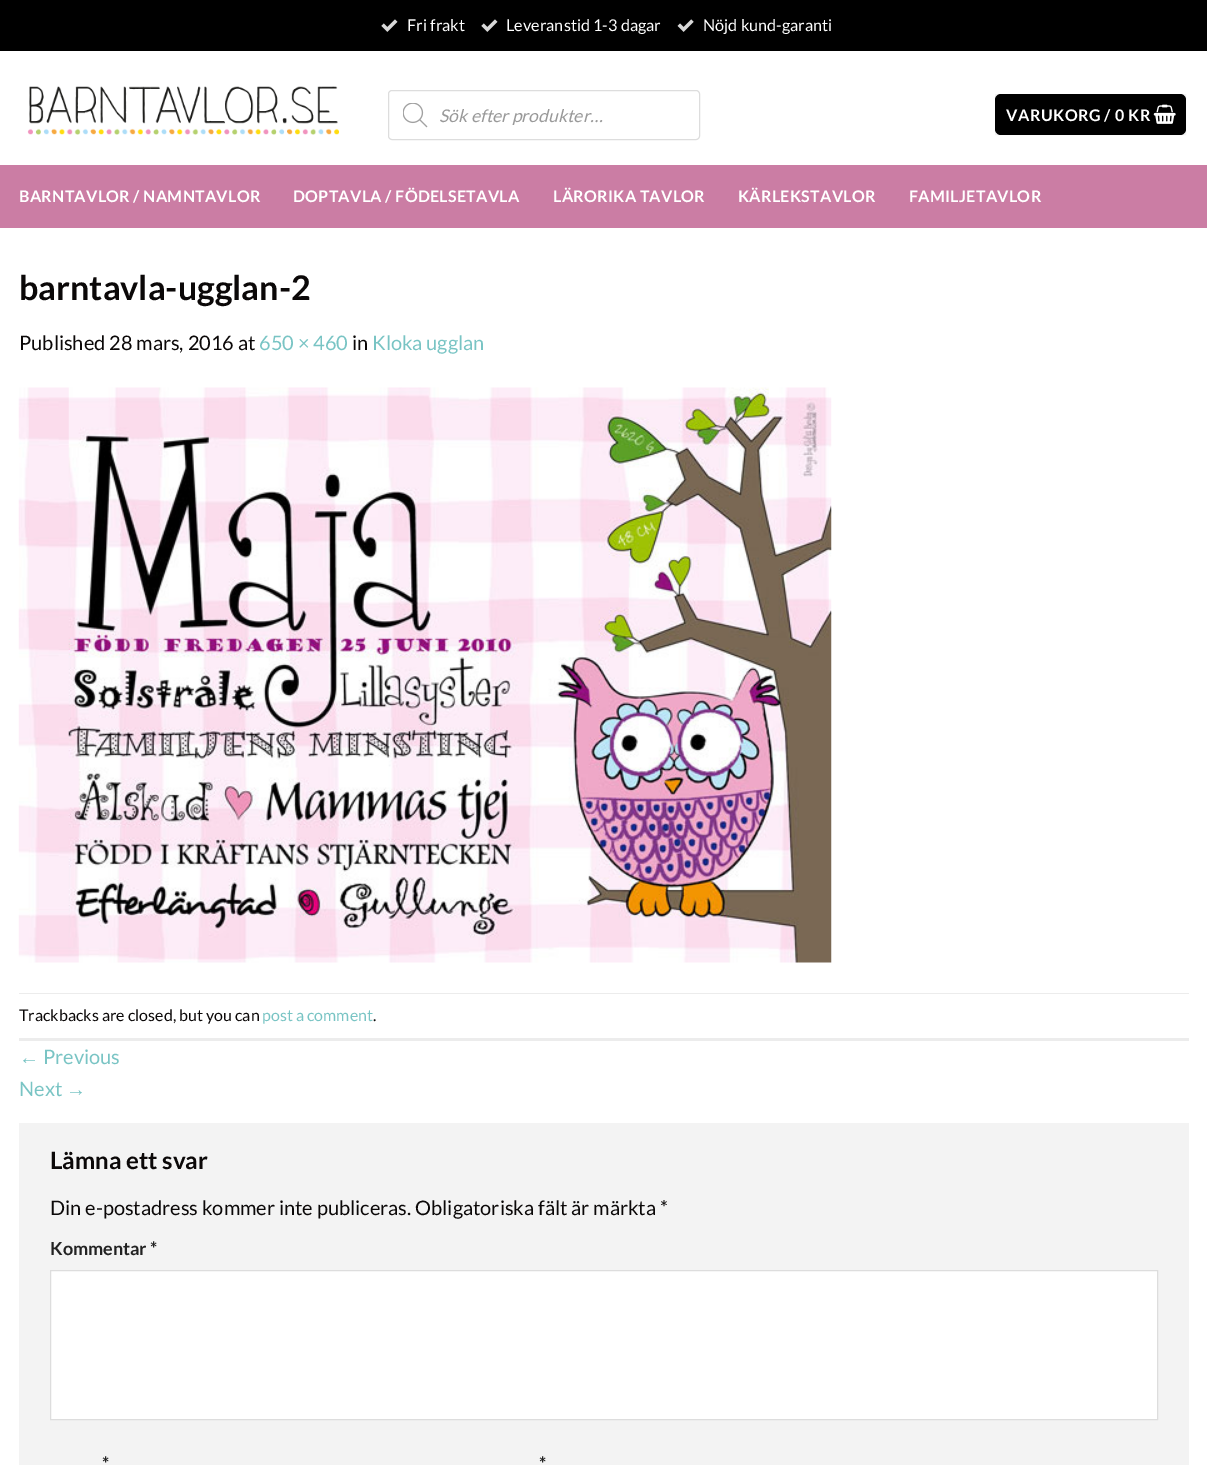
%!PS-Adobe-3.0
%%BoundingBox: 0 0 1207 1465
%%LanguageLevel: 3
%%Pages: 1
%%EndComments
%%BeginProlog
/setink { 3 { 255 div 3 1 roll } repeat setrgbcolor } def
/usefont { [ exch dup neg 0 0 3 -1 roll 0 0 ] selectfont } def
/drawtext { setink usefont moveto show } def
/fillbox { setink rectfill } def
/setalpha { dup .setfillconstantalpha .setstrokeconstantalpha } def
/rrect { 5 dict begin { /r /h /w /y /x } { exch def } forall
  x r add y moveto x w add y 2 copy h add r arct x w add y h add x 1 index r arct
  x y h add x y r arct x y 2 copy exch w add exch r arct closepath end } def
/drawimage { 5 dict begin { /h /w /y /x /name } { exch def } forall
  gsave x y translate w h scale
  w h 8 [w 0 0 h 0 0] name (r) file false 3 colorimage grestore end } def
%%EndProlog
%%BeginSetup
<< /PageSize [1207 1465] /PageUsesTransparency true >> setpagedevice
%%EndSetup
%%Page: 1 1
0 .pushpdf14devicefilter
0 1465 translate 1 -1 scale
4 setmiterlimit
0 0 1207 1465 0 0 0 fillbox
(assets/img1.rgb) 381 19 17 13 drawimage
(Fri frakt) 407 31 /Lato-Regular 16.25 255 255 255 drawtext
(assets/img1.rgb) 481 19 17 13 drawimage
(Leveranstid 1-3 dagar) 506 31 /Lato-Regular 16.25 255 255 255 drawtext
(assets/img2.rgb) 677 19 17 13 drawimage
(Nöjd kund-garanti) 703 31 /Lato-Regular 16.25 255 255 255 drawtext
0 51 1207 1414 255 255 255 fillbox
(assets/img3.rgb) 27 86 313 49 drawimage
221 221 221 setink
388.5 90.5 311 49 3.5 rrect stroke
(assets/img4.rgb) 403 103 25 25 drawimage
(Sök efter produkter…) 439 122 /Lato-Italic 17.5 153 153 153 drawtext
0 0 0 setink
995 94 191 41 6 rrect fill
0.05 setalpha
995.5 94.5 190 40 rectstroke
/Lato-Bold 16 usefont
1 setalpha
255 255 255 setink
1006 121 moveto 0.5 0 (VARUKORG / 0 KR) ashow
(assets/img5.rgb) 1153 104 23 20 drawimage
0 165 1207 63 203 125 164 fillbox
255 255 255 setink
19 202 moveto 0.3 0 (BARNTAVLOR / NAMNTAVLOR) ashow
293 202 moveto 0.3 0 (DOPTAVLA / FÖDELSETAVLA) ashow
553 202 moveto 0.3 0 (LÄRORIKA TAVLOR) ashow
738 202 moveto 0.3 0 (KÄRLEKSTAVLOR) ashow
909 202 moveto 0.3 0 (FAMILJETAVLOR) ashow
(barntavla-ugglan-2) 19 300 /Lato-Bold 34 11 8 8 drawtext
(Published 28 mars, 2016 at) 19 350 /Lato-Regular 20 11 8 8 drawtext
(650 × 460) 259 350 /Lato-Regular 20 121 196 196 drawtext
(in) 352 350 /Lato-Regular 20 11 8 8 drawtext
(Kloka ugglan) 372 350 /Lato-Regular 20 121 196 196 drawtext
(assets/img6.rgb) 18 387 814 576 drawimage
19 993 1170 1 236 236 236 fillbox
19 1038 1170 3 236 236 236 fillbox
(Trackbacks are closed, but you can) 19 1021 /Lato-Regular 16 11 8 8 drawtext
(post a comment) 262 1021 /Lato-Regular 16 121 196 196 drawtext
(.) 373 1021 /Lato-Regular 16 11 8 8 drawtext
(←) 19 1064 /LiberationSans-Regular 20 121 196 196 drawtext
(Previous) 43 1064 /Lato-Regular 20 121 196 196 drawtext
(Next) 19 1096 /Lato-Regular 20 121 196 196 drawtext
(→) 66 1096 /LiberationSans-Regular 20 121 196 196 drawtext
19 1123 1170 342 243 243 243 fillbox
(Lämna ett svar) 50 1169 /Lato-Bold 24 11 8 8 drawtext
(Din e-postadress kommer inte publiceras. Obligatoriska fält är märkta *) 50 1215 /Lato-Regular 20 11 8 8 drawtext
(Kommentar *) 50 1255 /Lato-Bold 18 34 34 34 drawtext
255 255 255 setink
50.5 1270.5 moveto 1157.5 1270.5 lineto 1157.5 1419.5 lineto 50.5 1419.5 lineto closepath gsave fill grestore
221 221 221 setink
stroke
(*) 102 1470 /Lato-Bold 18 34 34 34 drawtext
(*) 539 1470 /Lato-Bold 18 34 34 34 drawtext
.poppdf14devicefilter showpage
%%EOF
